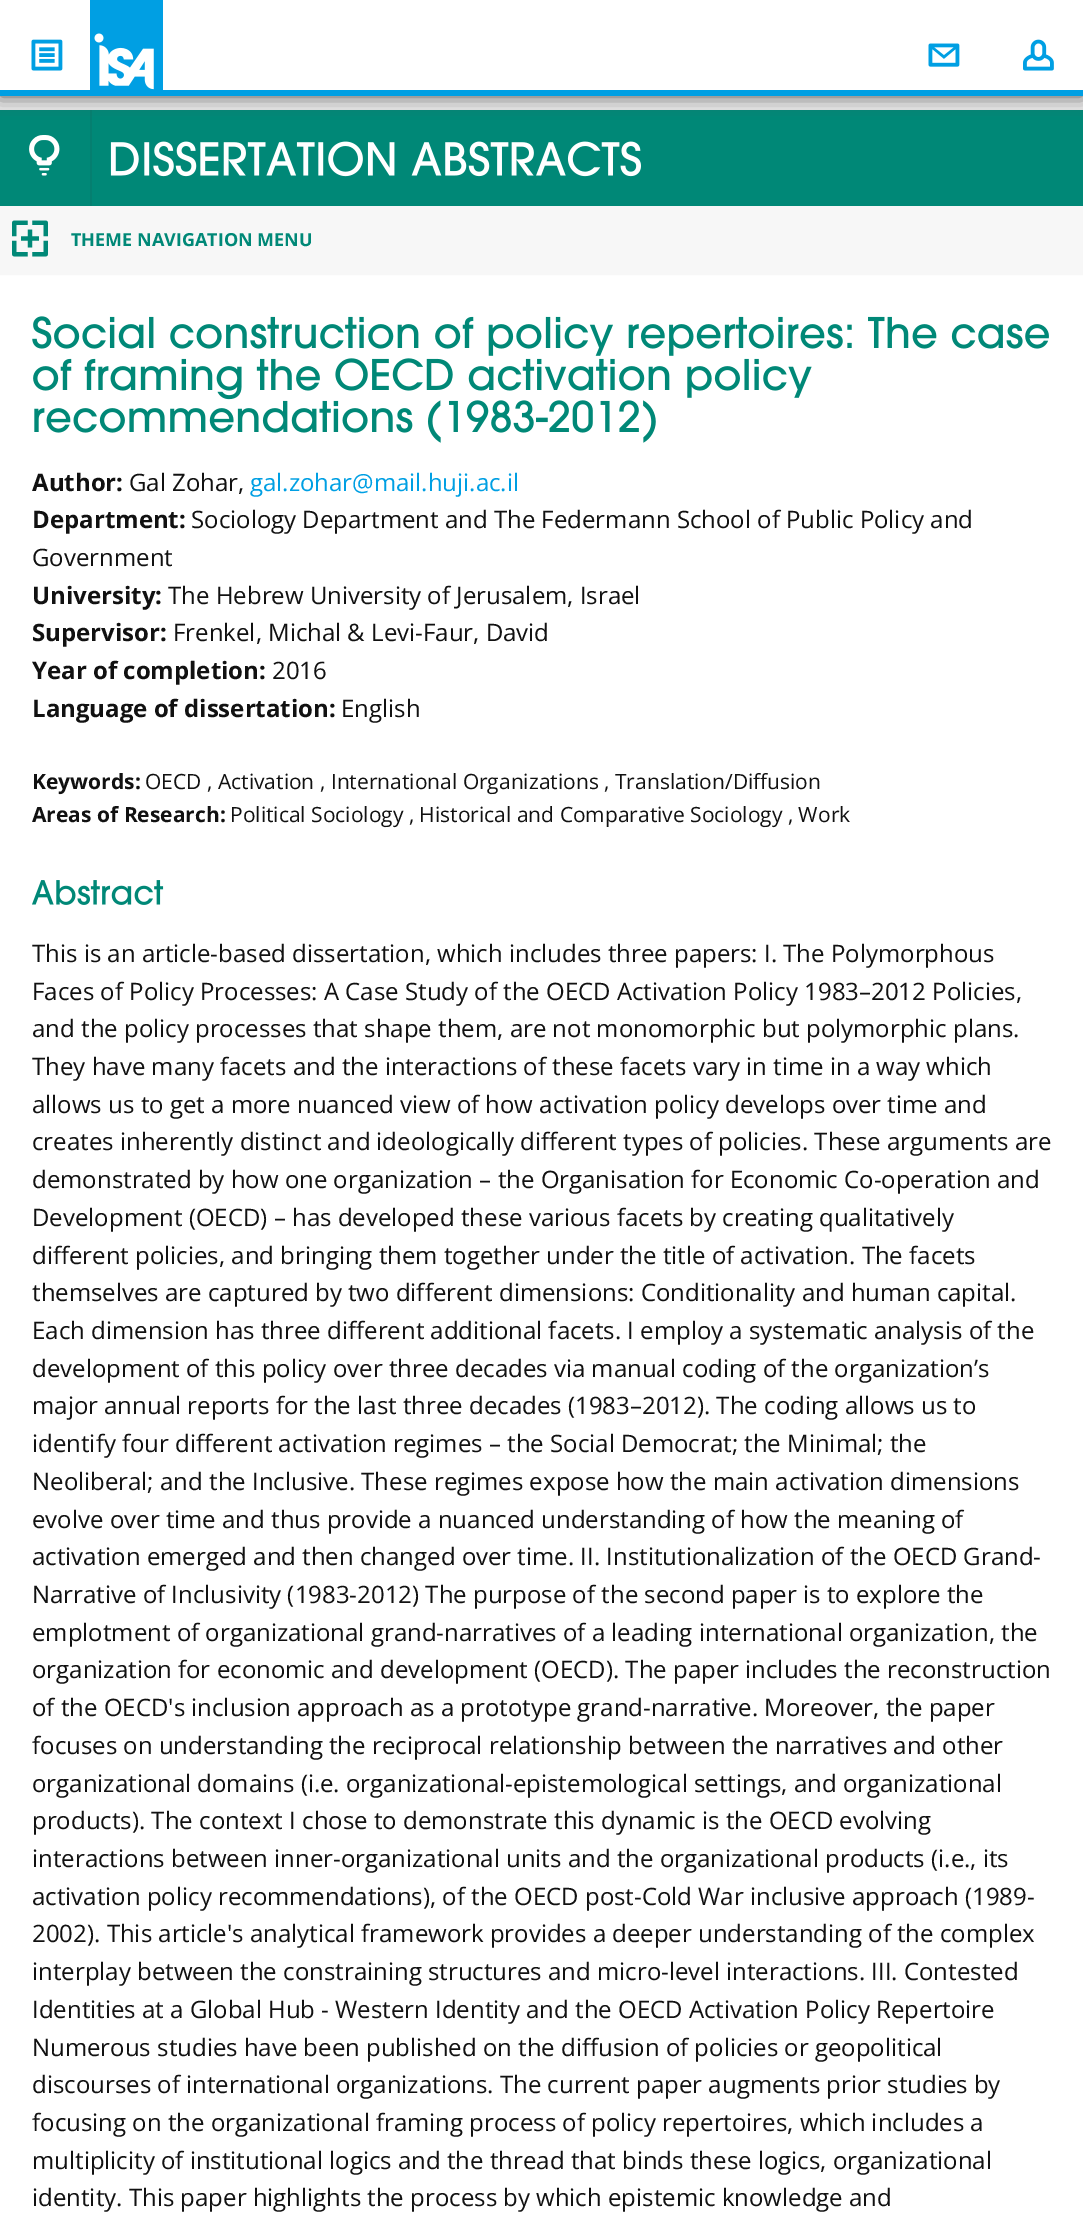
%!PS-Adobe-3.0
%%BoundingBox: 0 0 1083 2225
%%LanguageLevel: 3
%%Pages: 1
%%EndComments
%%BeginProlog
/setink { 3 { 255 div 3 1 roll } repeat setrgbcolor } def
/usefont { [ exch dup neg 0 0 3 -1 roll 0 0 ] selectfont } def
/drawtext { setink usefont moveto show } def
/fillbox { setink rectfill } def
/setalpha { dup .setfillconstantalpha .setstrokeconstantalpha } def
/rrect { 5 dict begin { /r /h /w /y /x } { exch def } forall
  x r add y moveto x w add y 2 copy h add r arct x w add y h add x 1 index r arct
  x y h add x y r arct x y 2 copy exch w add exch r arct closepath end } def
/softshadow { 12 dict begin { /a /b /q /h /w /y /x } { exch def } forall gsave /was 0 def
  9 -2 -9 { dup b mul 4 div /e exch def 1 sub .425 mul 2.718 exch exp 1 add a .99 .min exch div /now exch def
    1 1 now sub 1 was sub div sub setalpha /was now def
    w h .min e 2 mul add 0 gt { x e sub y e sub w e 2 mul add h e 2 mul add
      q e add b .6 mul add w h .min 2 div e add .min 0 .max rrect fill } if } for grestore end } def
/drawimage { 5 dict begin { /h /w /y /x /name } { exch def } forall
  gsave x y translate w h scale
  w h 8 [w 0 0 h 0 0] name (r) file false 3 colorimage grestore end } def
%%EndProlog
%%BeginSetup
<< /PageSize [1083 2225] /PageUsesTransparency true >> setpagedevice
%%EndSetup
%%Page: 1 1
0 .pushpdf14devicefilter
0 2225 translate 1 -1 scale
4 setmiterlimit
0 0 1083 2225 232 232 232 fillbox
0 110 1083 96 0 136 119 fillbox
90 110 2 96 5 127 112 fillbox
83 83 83 setink
0 0 1083 96 0 9 1 softshadow
0 0 1083 90 255 255 255 fillbox
0 90 1083 6 0 159 227 fillbox
(assets/img1.rgb) 31 39 32 32 drawimage
(assets/img2.rgb) 90 0 73 90 drawimage
(assets/img3.rgb) 928 43 32 24 drawimage
(assets/img4.rgb) 1023 39 31 32 drawimage
0 275 1083 1950 255 255 255 fillbox
(assets/img5.rgb) 29 135 31 41 drawimage
(assets/img6.rgb) 110 141 531 36 drawimage
247 247 247 setink
1.5 207.5 moveto 1081.5 207.5 lineto 1081.5 273.5 lineto 1.5 273.5 lineto closepath gsave fill grestore
3 setlinewidth
stroke
(assets/img7.rgb) 12 220 36 37 drawimage
(THEME NAVIGATION MENU) 71 246 /OpenSans-Bold 18 0 136 119 drawtext
(assets/img8.rgb) 32 316 1017 40 drawimage
(assets/img9.rgb) 33 358 779 42 drawimage
(assets/img10.rgb) 34 400 622 43 drawimage
(Author:) 32 491 /OpenSans-Bold 24 17 17 17 drawtext
(Gal Zohar,) 129 491 /OpenSans-Regular 24 17 17 17 drawtext
(gal.zohar@mail.huji.ac.il) 250 491 /OpenSans-Regular 24 0 159 227 drawtext
(Department:) 32 528 /OpenSans-Bold 24 17 17 17 drawtext
(Sociology Department and The Federmann School of Public Policy and) 191 528 /OpenSans-Regular 24 17 17 17 drawtext
(Government) 32 566 /OpenSans-Regular 24 17 17 17 drawtext
(University:) 32 604 /OpenSans-Bold 24 17 17 17 drawtext
(The Hebrew University of Jerusalem, Israel) 168 604 /OpenSans-Regular 24 17 17 17 drawtext
(Supervisor:) 32 641 /OpenSans-Bold 24 17 17 17 drawtext
(Frenkel, Michal & Levi-Faur, David) 173 641 /OpenSans-Regular 24 17 17 17 drawtext
(Year of completion:) 32 679 /OpenSans-Bold 24 17 17 17 drawtext
(2016) 272 679 /OpenSans-Regular 24 17 17 17 drawtext
(Language of dissertation:) 32 717 /OpenSans-Bold 24 17 17 17 drawtext
(English) 341 717 /OpenSans-Regular 24 17 17 17 drawtext
(Keywords:) 32 789 /OpenSans-Bold 21 17 17 17 drawtext
(OECD , Activation , International Organizations , Translation/Diffusion) 145 789 /OpenSans-Regular 21 17 17 17 drawtext
(Areas of Research:) 32 822 /OpenSans-Bold 21 17 17 17 drawtext
(Political Sociology , Historical and Comparative Sociology , Work) 230 822 /OpenSans-Regular 21 17 17 17 drawtext
(assets/img11.rgb) 32 880 132 25 drawimage
(This is an article-based dissertation, which includes three papers: I. The Polymorphous) 32 962 /OpenSans-Regular 24 17 17 17 drawtext
(Faces of Policy Processes: A Case Study of the OECD Activation Policy 1983–2012 Policies,) 32 1000 /OpenSans-Regular 24 17 17 17 drawtext
(and the policy processes that shape them, are not monomorphic but polymorphic plans.) 32 1037 /OpenSans-Regular 24 17 17 17 drawtext
(They have many facets and the interactions of these facets vary in time in a way which) 32 1075 /OpenSans-Regular 24 17 17 17 drawtext
(allows us to get a more nuanced view of how activation policy develops over time and) 32 1113 /OpenSans-Regular 24 17 17 17 drawtext
(creates inherently distinct and ideologically different types of policies. These arguments are) 32 1150 /OpenSans-Regular 24 17 17 17 drawtext
(demonstrated by how one organization – the Organisation for Economic Co-operation and) 32 1188 /OpenSans-Regular 24 17 17 17 drawtext
(Development \(OECD\) – has developed these various facets by creating qualitatively) 32 1226 /OpenSans-Regular 24 17 17 17 drawtext
(different policies, and bringing them together under the title of activation. The facets) 32 1264 /OpenSans-Regular 24 17 17 17 drawtext
(themselves are captured by two different dimensions: Conditionality and human capital.) 32 1301 /OpenSans-Regular 24 17 17 17 drawtext
(Each dimension has three different additional facets. I employ a systematic analysis of the) 32 1339 /OpenSans-Regular 24 17 17 17 drawtext
(development of this policy over three decades via manual coding of the organization’s) 32 1377 /OpenSans-Regular 24 17 17 17 drawtext
(major annual reports for the last three decades \(1983–2012\). The coding allows us to) 32 1414 /OpenSans-Regular 24 17 17 17 drawtext
(identify four different activation regimes – the Social Democrat; the Minimal; the) 32 1452 /OpenSans-Regular 24 17 17 17 drawtext
(Neoliberal; and the Inclusive. These regimes expose how the main activation dimensions) 32 1490 /OpenSans-Regular 24 17 17 17 drawtext
(evolve over time and thus provide a nuanced understanding of how the meaning of) 32 1528 /OpenSans-Regular 24 17 17 17 drawtext
(activation emerged and then changed over time. II. Institutionalization of the OECD Grand-) 32 1565 /OpenSans-Regular 24 17 17 17 drawtext
(Narrative of Inclusivity \(1983-2012\) The purpose of the second paper is to explore the) 32 1603 /OpenSans-Regular 24 17 17 17 drawtext
(emplotment of organizational grand-narratives of a leading international organization, the) 32 1641 /OpenSans-Regular 24 17 17 17 drawtext
(organization for economic and development \(OECD\). The paper includes the reconstruction) 32 1678 /OpenSans-Regular 24 17 17 17 drawtext
(of the OECD's inclusion approach as a prototype grand-narrative. Moreover, the paper) 32 1716 /OpenSans-Regular 24 17 17 17 drawtext
(focuses on understanding the reciprocal relationship between the narratives and other) 32 1754 /OpenSans-Regular 24 17 17 17 drawtext
(organizational domains \(i.e. organizational-epistemological settings, and organizational) 32 1792 /OpenSans-Regular 24 17 17 17 drawtext
(products\). The context I chose to demonstrate this dynamic is the OECD evolving) 32 1829 /OpenSans-Regular 24 17 17 17 drawtext
(interactions between inner-organizational units and the organizational products \(i.e., its) 32 1867 /OpenSans-Regular 24 17 17 17 drawtext
(activation policy recommendations\), of the OECD post-Cold War inclusive approach \(1989-) 32 1905 /OpenSans-Regular 24 17 17 17 drawtext
(2002\). This article's analytical framework provides a deeper understanding of the complex) 32 1942 /OpenSans-Regular 24 17 17 17 drawtext
(interplay between the constraining structures and micro-level interactions. III. Contested) 32 1980 /OpenSans-Regular 24 17 17 17 drawtext
(Identities at a Global Hub - Western Identity and the OECD Activation Policy Repertoire) 32 2018 /OpenSans-Regular 24 17 17 17 drawtext
(Numerous studies have been published on the diffusion of policies or geopolitical) 32 2056 /OpenSans-Regular 24 17 17 17 drawtext
(discourses of international organizations. The current paper augments prior studies by) 32 2093 /OpenSans-Regular 24 17 17 17 drawtext
(focusing on the organizational framing process of policy repertoires, which includes a) 32 2131 /OpenSans-Regular 24 17 17 17 drawtext
(multiplicity of institutional logics and the thread that binds these logics, organizational) 32 2169 /OpenSans-Regular 24 17 17 17 drawtext
(identity. This paper highlights the process by which epistemic knowledge and) 32 2206 /OpenSans-Regular 24 17 17 17 drawtext
.poppdf14devicefilter showpage
%%EOF
